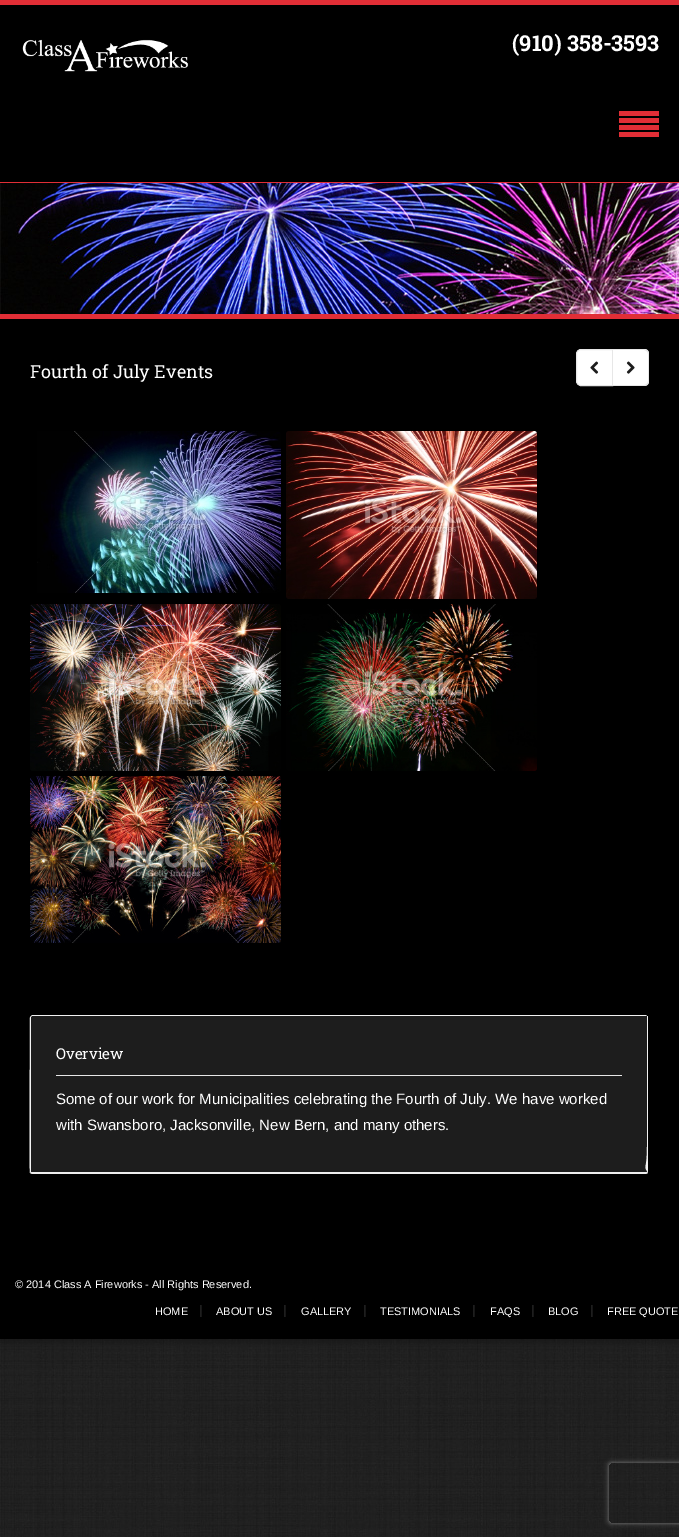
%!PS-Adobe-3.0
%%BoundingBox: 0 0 679 1537
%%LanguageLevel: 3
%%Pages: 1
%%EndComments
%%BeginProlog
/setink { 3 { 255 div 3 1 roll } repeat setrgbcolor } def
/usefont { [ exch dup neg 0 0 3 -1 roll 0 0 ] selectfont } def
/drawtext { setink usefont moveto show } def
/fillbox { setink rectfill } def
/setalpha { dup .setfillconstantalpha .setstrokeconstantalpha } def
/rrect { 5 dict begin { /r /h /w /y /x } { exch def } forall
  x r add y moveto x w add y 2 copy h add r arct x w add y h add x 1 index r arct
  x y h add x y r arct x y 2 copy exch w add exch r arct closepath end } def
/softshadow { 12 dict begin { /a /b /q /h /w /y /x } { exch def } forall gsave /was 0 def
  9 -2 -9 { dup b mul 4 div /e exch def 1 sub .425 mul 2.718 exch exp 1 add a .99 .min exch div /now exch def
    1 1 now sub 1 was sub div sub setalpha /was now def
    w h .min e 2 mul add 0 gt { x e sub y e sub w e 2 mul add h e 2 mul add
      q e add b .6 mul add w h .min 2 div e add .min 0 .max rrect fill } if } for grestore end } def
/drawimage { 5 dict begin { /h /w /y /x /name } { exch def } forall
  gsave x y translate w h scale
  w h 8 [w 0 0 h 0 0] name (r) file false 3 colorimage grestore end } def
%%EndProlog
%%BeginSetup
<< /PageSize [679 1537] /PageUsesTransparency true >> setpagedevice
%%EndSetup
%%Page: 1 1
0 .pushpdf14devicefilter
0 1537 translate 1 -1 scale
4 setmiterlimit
0 0 679 1537 255 255 255 fillbox
(assets/img1.rgb) 0 1339 679 198 drawimage
0 0 0 setink
0 5 679 1339 0 2 0.2 softshadow
0 5 679 177 0 0 0 fillbox
0 0 679 5 225 46 54 fillbox
(assets/img2.rgb) 22 39 167 33 drawimage
(\(910\) 358-3593) 512 51 /RobotoSlab-Bold 22 255 255 255 drawtext
619 111 40 5 225 46 54 fillbox
619 118 40 5 225 46 54 fillbox
619 125 40 5 225 46 54 fillbox
619 132 40 5 225 46 54 fillbox
(assets/img3.rgb) 0 183 679 131 drawimage
0 182 679 1 225 46 54 fillbox
0 314 679 5 225 46 54 fillbox
0 319 679 1020 0 0 0 fillbox
(Fourth of July Events) 30 378 /RobotoSlab-Regular 18 255 255 255 drawtext
581 349.5 moveto 612.5 349.5 lineto 612.5 385.5 lineto 581 385.5 lineto 578.5 385.5 576.5 383.5 576.5 381 curveto 576.5 354 lineto 576.5 351.5 578.5 349.5 581 349.5 curveto closepath gsave fill grestore
231 231 231 setink
stroke
(assets/img4.rgb) 590 361 9 13 drawimage
255 255 255 setink
613 349 moveto 644 349 lineto 647 349 649 351 649 354 curveto 649 381 lineto 649 384 647 386 644 386 curveto 613 386 lineto closepath fill
231 231 231 setink
613 349 moveto 644 349 lineto 647 349 649 351 649 354 curveto 649 381 lineto 649 384 647 386 644 386 curveto 613 386 lineto closepath 613 350 moveto 644 350 lineto 646 350 648 352 648 354 curveto 648 381 lineto 648 383 646 385 644 385 curveto 613 385 lineto closepath eofill
(assets/img5.rgb) 626 361 9 13 drawimage
(assets/img6.rgb) 37 431 244 162 drawimage
(assets/img7.rgb) 286 431 251 168 drawimage
(assets/img8.rgb) 30 604 251 167 drawimage
(assets/img9.rgb) 286 604 251 167 drawimage
(assets/img10.rgb) 30 776 251 167 drawimage
29 29 29 setink
32 1016 moveto 646 1016 lineto 647 1016 647 1016 647 1017 curveto 647 1172 lineto 31 1172 lineto 31 1017 lineto closepath fill
242 242 242 setink
32 1015 moveto 31 1016 lineto 32 1016 lineto 647 1016 lineto 646 1015 lineto closepath fill
648 1172 moveto 648 1016 lineto 647 1016 lineto 647 1146 lineto 647 1172 643 1164 648 1173 curveto closepath fill
238 238 238 setink
32 1174 moveto 646 1174 lineto 648 1173 lineto 647 1172 lineto 31 1172 lineto 30 1173 lineto closepath fill
242 242 242 setink
30 1017 moveto 30 1032 29 1172 30 1173 curveto 31 1172 lineto 31 1017 lineto 32 1016 lineto 31 1016 lineto closepath fill
56 1075 566 1 231 231 231 fillbox
(Overview) 56 1059 /RobotoSlab-Regular 15 255 255 255 drawtext
(Some of our work for Municipalities celebrating the Fourth of July. We have worked) 56 1104 /LiberationSans-Regular 15 255 255 255 drawtext
(with Swansboro, Jacksonville, New Bern, and many others.) 56 1130 /LiberationSans-Regular 15 255 255 255 drawtext
(© 2014 Class A Fireworks - All Rights Reserved.) 15 1288 /LiberationSans-Regular 11 255 255 255 drawtext
(HOME) 155 1315 /LiberationSans-Regular 11 255 255 255 drawtext
201 1305 1 12 22 22 22 fillbox
200 1305 1 12 30 30 30 fillbox
(ABOUT US) 216 1315 /LiberationSans-Regular 11 255 255 255 drawtext
285 1305 1 12 22 22 22 fillbox
284 1305 1 12 30 30 30 fillbox
(GALLERY) 301 1315 /LiberationSans-Regular 11 255 255 255 drawtext
365 1305 1 12 22 22 22 fillbox
364 1305 1 12 30 30 30 fillbox
(TESTIMONIALS) 380 1315 /LiberationSans-Regular 11 255 255 255 drawtext
474 1305 1 12 22 22 22 fillbox
473 1305 1 12 30 30 30 fillbox
(FAQS) 490 1315 /LiberationSans-Regular 11 255 255 255 drawtext
533 1305 1 12 22 22 22 fillbox
532 1305 1 12 30 30 30 fillbox
(BLOG) 548 1315 /LiberationSans-Regular 11 255 255 255 drawtext
592 1305 1 12 22 22 22 fillbox
591 1305 1 12 30 30 30 fillbox
(FREE QUOTE) 607 1315 /LiberationSans-Regular 11 255 255 255 drawtext
gsave
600 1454 moveto 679 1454 lineto 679 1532 lineto 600 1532 lineto closepath 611 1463 moveto 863 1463 lineto 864 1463 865 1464 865 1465 curveto 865 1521 lineto 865 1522 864 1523 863 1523 curveto 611 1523 lineto 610 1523 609 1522 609 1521 curveto 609 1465 lineto 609 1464 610 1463 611 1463 curveto closepath eoclip newpath
128 128 128 setink
609 1463 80 60 2 2.5 1 softshadow
grestore
.poppdf14devicefilter showpage
%%EOF
